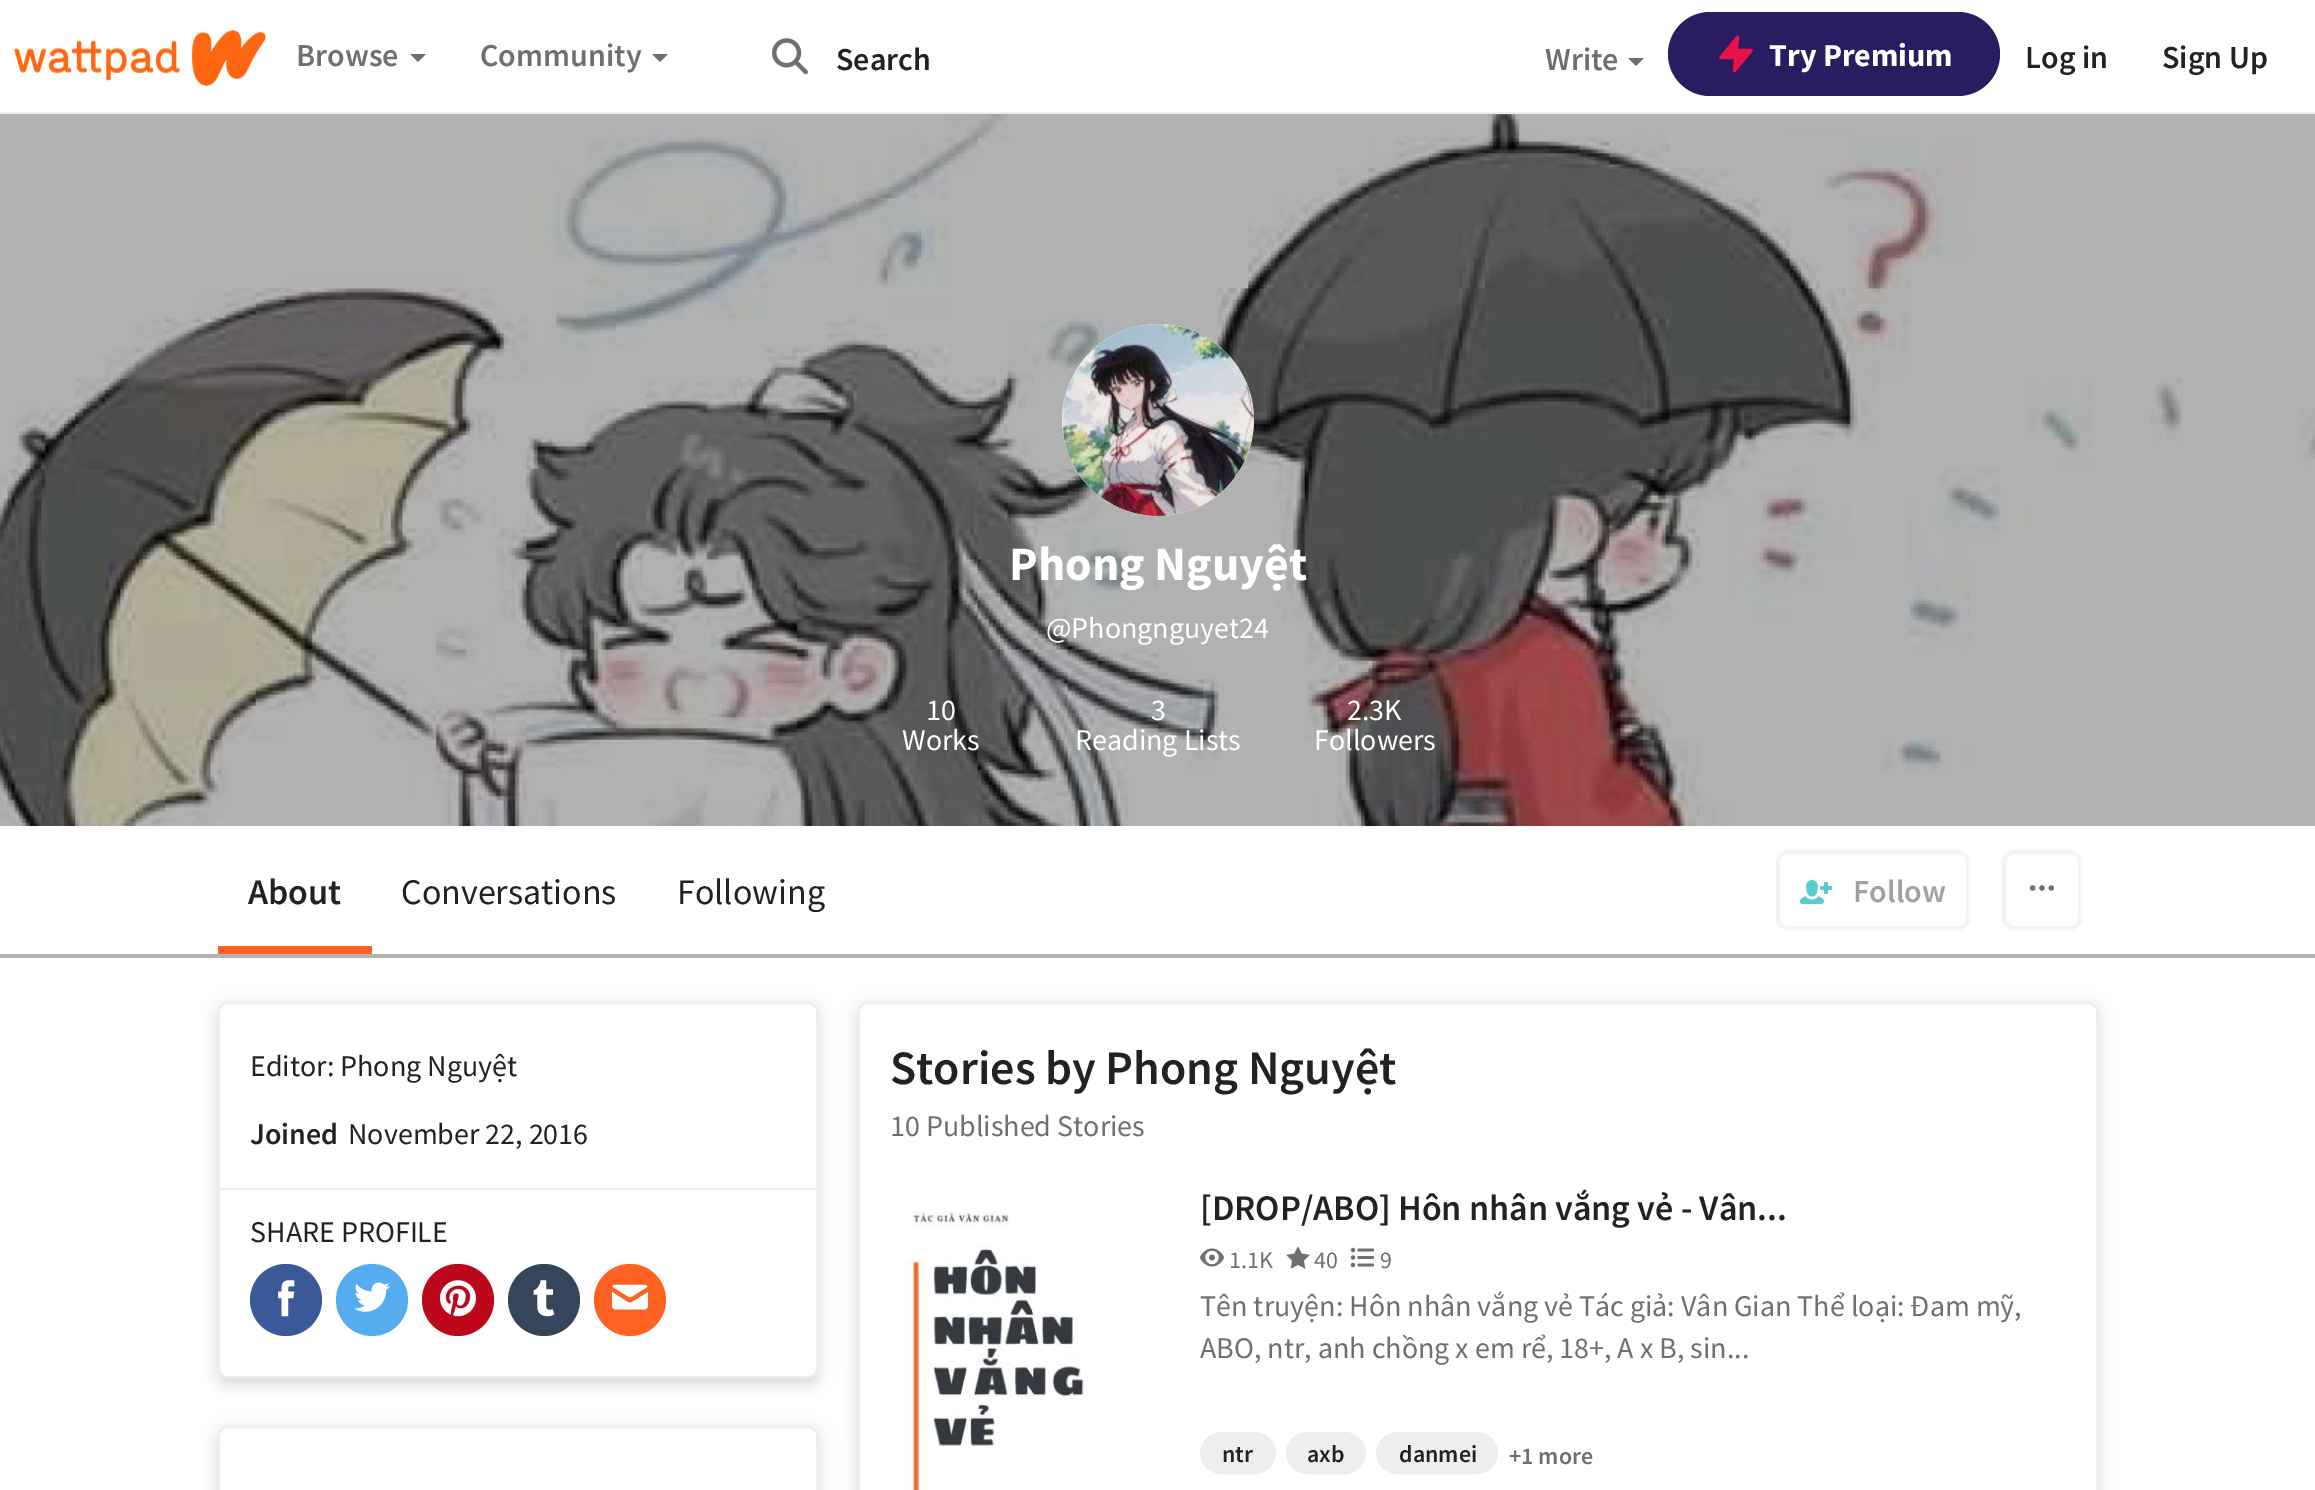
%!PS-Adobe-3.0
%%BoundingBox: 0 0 2315 1490
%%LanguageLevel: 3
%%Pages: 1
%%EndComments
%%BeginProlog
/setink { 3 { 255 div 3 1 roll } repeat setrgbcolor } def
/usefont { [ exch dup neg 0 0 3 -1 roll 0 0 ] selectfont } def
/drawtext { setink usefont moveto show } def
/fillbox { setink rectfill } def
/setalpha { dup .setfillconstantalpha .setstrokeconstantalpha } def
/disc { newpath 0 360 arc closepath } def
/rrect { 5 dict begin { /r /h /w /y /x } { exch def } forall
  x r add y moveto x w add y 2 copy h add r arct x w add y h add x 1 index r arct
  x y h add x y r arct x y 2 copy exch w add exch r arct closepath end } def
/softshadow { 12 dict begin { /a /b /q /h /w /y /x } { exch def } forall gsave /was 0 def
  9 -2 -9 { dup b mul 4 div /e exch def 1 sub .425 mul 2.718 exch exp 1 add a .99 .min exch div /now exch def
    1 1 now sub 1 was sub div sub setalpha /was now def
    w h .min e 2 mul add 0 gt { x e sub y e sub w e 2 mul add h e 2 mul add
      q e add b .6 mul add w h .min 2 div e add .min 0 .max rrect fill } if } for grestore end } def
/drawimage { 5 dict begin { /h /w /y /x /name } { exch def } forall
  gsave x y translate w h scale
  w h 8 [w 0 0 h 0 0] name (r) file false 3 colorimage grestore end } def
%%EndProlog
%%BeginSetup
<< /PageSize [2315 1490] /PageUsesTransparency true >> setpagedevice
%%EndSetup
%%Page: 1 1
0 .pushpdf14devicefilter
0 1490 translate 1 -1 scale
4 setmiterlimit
0 0 2315 1490 255 255 255 fillbox
0 112 2315 2 238 238 238 fillbox
(assets/img1.rgb) 14 30 252 56 drawimage
(Browse) 296 66 /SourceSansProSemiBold-SemiBold 32 111 111 111 drawtext
410 54 moveto 426 54 lineto 418 62 lineto closepath fill
(Community) 480 66 /SourceSansProSemiBold-SemiBold 32 111 111 111 drawtext
652 54 moveto 668 54 lineto 660 62 lineto closepath fill
(assets/img2.rgb) 772 38 36 37 drawimage
(Search) 836 70 /SourceSansProSemiBold-SemiBold 32 34 34 34 drawtext
(Write) 1545 70 /SourceSansProSemiBold-SemiBold 32 111 111 111 drawtext
1628 58 moveto 1644 58 lineto 1636 66 lineto closepath fill
42 28 96 setink
1668 12 332 84 42 rrect fill
232 18 73 setink
1737.5 37.5 moveto 1721 57.5 lineto 1736 57.5 lineto 1734.5 70.5 lineto 1751 50.5 lineto 1736 50.5 lineto closepath gsave fill grestore
3.3 setlinewidth
1 setlinecap
1 setlinejoin
stroke
(Try Premium) 1769 66 /SourceSansPro-Bold 32 255 255 255 drawtext
(Log in) 2025 68 /SourceSansProSemiBold-SemiBold 32 34 34 34 drawtext
(Sign Up) 2162 68 /SourceSansProSemiBold-SemiBold 32 34 34 34 drawtext
(assets/img3.rgb) 0 114 2315 712 drawimage
238 238 238 setink
1158 420 96 disc fill
(assets/img4.rgb) 1062 324 192 192 drawimage
(Phong Nguyệt) 1009 580 /SourceSansPro-Bold 48 255 255 255 drawtext
(@Phongnguyet24) 1046 638 /SourceSansPro-Regular 30 255 255 255 drawtext
(10) 926 720 /SourceSansPro-Regular 30 255 255 255 drawtext
(Works) 902 750 /SourceSansPro-Regular 30 255 255 255 drawtext
(3) 1151 720 /SourceSansPro-Regular 30 255 255 255 drawtext
(Reading Lists) 1075 750 /SourceSansPro-Regular 30 255 255 255 drawtext
(2.3K) 1347 720 /SourceSansPro-Regular 30 255 255 255 drawtext
(Followers) 1314 750 /SourceSansPro-Regular 30 255 255 255 drawtext
0 954 2315 4 179 179 179 fillbox
218 946 154 8 255 97 34 fillbox
(About) 248 904 /SourceSansProSemiBold-SemiBold 36 34 34 34 drawtext
(Conversations) 401 904 /SourceSansPro-Regular 36 34 34 34 drawtext
(Following) 677 904 /SourceSansPro-Regular 36 34 34 34 drawtext
244 244 244 setink
4 setlinewidth
0 setlinecap
0 setlinejoin
1778 852 190 76 10 rrect stroke
(assets/img5.rgb) 1799 880 33 24 drawimage
(Follow) 1853 902 /SourceSansProSemiBold-SemiBold 32 161 161 161 drawtext
244 244 244 setink
2004 852 76 76 10 rrect stroke
111 111 111 setink
2.7 setlinewidth
2032.7 888 1.3 disc stroke
2042 888 1.3 disc stroke
2051.3 888 1.3 disc stroke
34 34 34 setink
218 1010 600 376 10 5 0.1 softshadow
218 1004 600 376 10 10 0.08 softshadow
255 255 255 setink
219 1003 598 374 9 rrect gsave fill grestore
238 238 238 setink
2 setlinewidth
stroke
(Editor: Phong Nguyệt) 250 1076 /SourceSansPro-Regular 30 34 34 34 drawtext
(Joined) 250 1144 /SourceSansProSemiBold-SemiBold 30 34 34 34 drawtext
(November 22, 2016) 348 1144 /SourceSansPro-Regular 30 34 34 34 drawtext
220 1188 596 2 238 238 238 fillbox
(SHARE PROFILE) 250 1242 /SourceSansPro-Regular 30 34 34 34 drawtext
59 89 152 setink
286 1300 36 disc fill
(assets/img6.rgb) 278 1280 17 37 drawimage
85 172 238 setink
372 1300 36 disc fill
(assets/img7.rgb) 354 1282 36 30 drawimage
189 8 28 setink
458 1300 36 disc fill
(assets/img8.rgb) 440 1280 36 37 drawimage
53 70 92 setink
544 1300 36 disc fill
(assets/img9.rgb) 533 1280 22 37 drawimage
255 97 34 setink
630 1300 36 disc fill
(assets/img10.rgb) 612 1284 36 26 drawimage
34 34 34 setink
218 1434 600 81 10 5 0.1 softshadow
218 1428 600 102 10 10 0.08 softshadow
255 255 255 setink
219 1427 598 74 9 rrect gsave fill grestore
238 238 238 setink
stroke
34 34 34 setink
858 1010 1240 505 10 5 0.1 softshadow
858 1004 1240 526 10 10 0.08 softshadow
255 255 255 setink
859 1003 1238 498 9 rrect gsave fill grestore
238 238 238 setink
stroke
(Stories by Phong Nguyệt) 890 1084 /SourceSansProSemiBold-SemiBold 48 34 34 34 drawtext
(10 Published Stories) 890 1136 /SourceSansPro-Regular 30 111 111 111 drawtext
(assets/img11.rgb) 890 1180 284 310 drawimage
([DROP/ABO] Hôn nhân vắng vẻ - Vân...) 1200 1220 /SourceSansProSemiBold-SemiBold 36 34 34 34 drawtext
(assets/img12.rgb) 1200 1248 24 19 drawimage
(1.1K) 1229 1268 /SourceSansPro-Regular 24 111 111 111 drawtext
(assets/img13.rgb) 1286 1246 24 23 drawimage
(40) 1314 1268 /SourceSansPro-Regular 24 111 111 111 drawtext
(assets/img14.rgb) 1350 1247 24 21 drawimage
(9) 1380 1268 /SourceSansPro-Regular 24 111 111 111 drawtext
(Tên truyện: Hôn nhân vắng vẻ Tác giả: Vân Gian Thể loại: Đam mỹ,) 1200 1316 /SourceSansPro-Regular 30 111 111 111 drawtext
(ABO, ntr, anh chồng x em rể, 18+, A x B, sin...) 1200 1358 /SourceSansPro-Regular 30 111 111 111 drawtext
238 238 238 setink
1201 1433 74 40 20 rrect gsave fill grestore
stroke
(ntr) 1222 1462 /SourceSansProSemiBold-SemiBold 24 34 34 34 drawtext
238 238 238 setink
1287 1433 78 40 20 rrect gsave fill grestore
stroke
(axb) 1307 1462 /SourceSansProSemiBold-SemiBold 24 34 34 34 drawtext
238 238 238 setink
1377 1433 120 40 20 rrect gsave fill grestore
stroke
(danmei) 1399 1462 /SourceSansProSemiBold-SemiBold 24 34 34 34 drawtext
(+1 more) 1509 1464 /SourceSansProSemiBold-SemiBold 24 111 111 111 drawtext
.poppdf14devicefilter showpage
%%EOF
